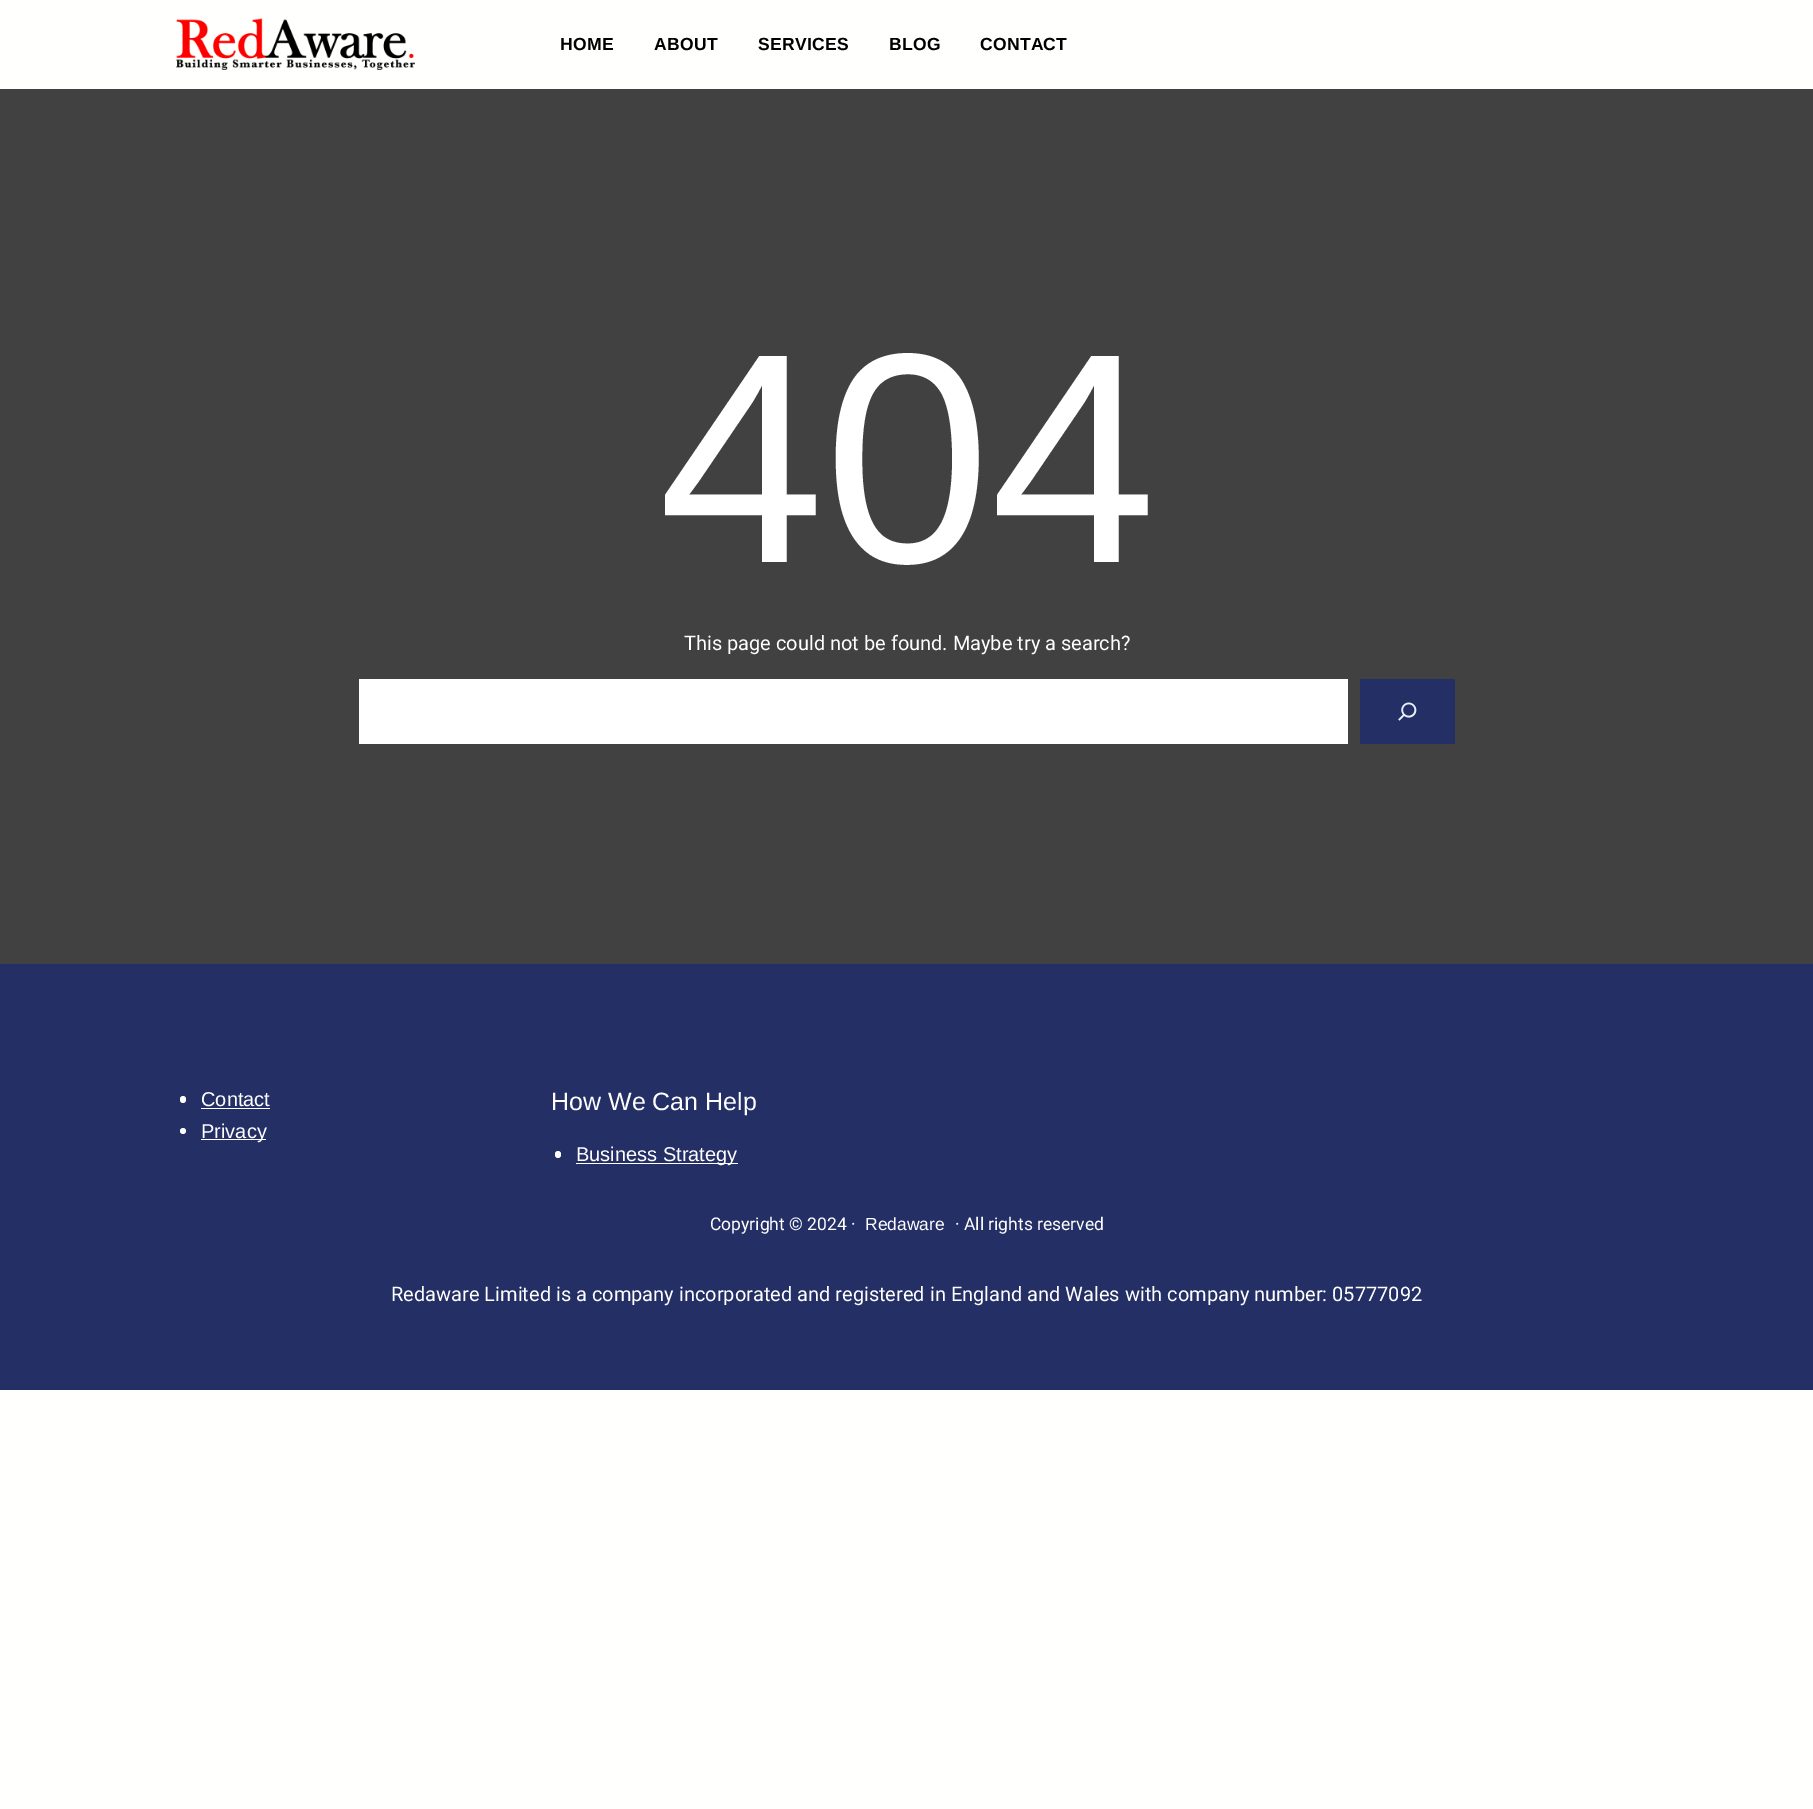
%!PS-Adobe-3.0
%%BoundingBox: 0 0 1813 1809
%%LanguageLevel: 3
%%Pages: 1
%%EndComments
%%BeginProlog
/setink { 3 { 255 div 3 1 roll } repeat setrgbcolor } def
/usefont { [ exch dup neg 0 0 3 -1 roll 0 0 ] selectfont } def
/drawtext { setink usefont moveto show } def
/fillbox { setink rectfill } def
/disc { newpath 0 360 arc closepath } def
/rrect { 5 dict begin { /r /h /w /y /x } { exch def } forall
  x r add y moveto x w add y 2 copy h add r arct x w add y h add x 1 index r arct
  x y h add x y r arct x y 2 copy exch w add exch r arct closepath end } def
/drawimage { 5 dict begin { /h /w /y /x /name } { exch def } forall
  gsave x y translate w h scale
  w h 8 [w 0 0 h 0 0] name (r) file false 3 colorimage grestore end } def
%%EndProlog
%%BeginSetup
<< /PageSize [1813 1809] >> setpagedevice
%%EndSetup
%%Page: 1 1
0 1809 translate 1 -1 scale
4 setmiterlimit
0 0 1813 1809 255 255 253 fillbox
(assets/img1.rgb) 176 18 239 52 drawimage
/LiberationSans-Bold 17.5 usefont
0 0 0 setink
560 50 moveto 0.25 0 (HOME) ashow
654 50 moveto 0.25 0 (ABOUT) ashow
758 50 moveto 0.25 0 (SERVICES) ashow
889 50 moveto 0.25 0 (BLOG) ashow
980 50 moveto 0.25 0 (CONTACT) ashow
0 89 1813 875 65 65 65 fillbox
/LiberationSans-Regular 300 usefont
255 255 255 setink
658 562 moveto -1 0 (404) ashow
(This page could not be found. Maybe try a search?) 684 650 /Roboto-Regular 20 255 255 255 drawtext
359 679 989 65 255 255 255 fillbox
1360 679 95 65 36 47 101 fillbox
(assets/img2.rgb) 1398 702 19 19 drawimage
0 964 1813 426 36 47 101 fillbox
255 255 255 setink
180 1096 6 7 3 rrect fill
(Contact) 201 1106 /LiberationSans-Regular 20 255 255 255 drawtext
201 1108 69 1 255 255 255 fillbox
183 1131 3 disc fill
201 1139 65 1 255 255 255 fillbox
(Privacy) 201 1138 /LiberationSans-Regular 20 255 255 255 drawtext
(How We Can Help) 551 1110 /LiberationSans-Regular 25 255 255 255 drawtext
555 1151 6 7 3 rrect fill
576 1163 162 1 255 255 255 fillbox
(Business Strategy) 576 1161 /LiberationSans-Regular 20 255 255 255 drawtext
(Copyright © 2024 ·) 710 1230 /Roboto-Regular 17.5 255 255 255 drawtext
(Redaware) 865 1230 /LiberationSans-Regular 17.5 255 255 255 drawtext
(· All rights reserved) 955 1230 /Roboto-Regular 17.5 255 255 255 drawtext
(Redaware Limited is a company incorporated and registered in England and Wales with company number: 05777092) 391 1301 /Roboto-Regular 20 255 255 255 drawtext
showpage
%%EOF
